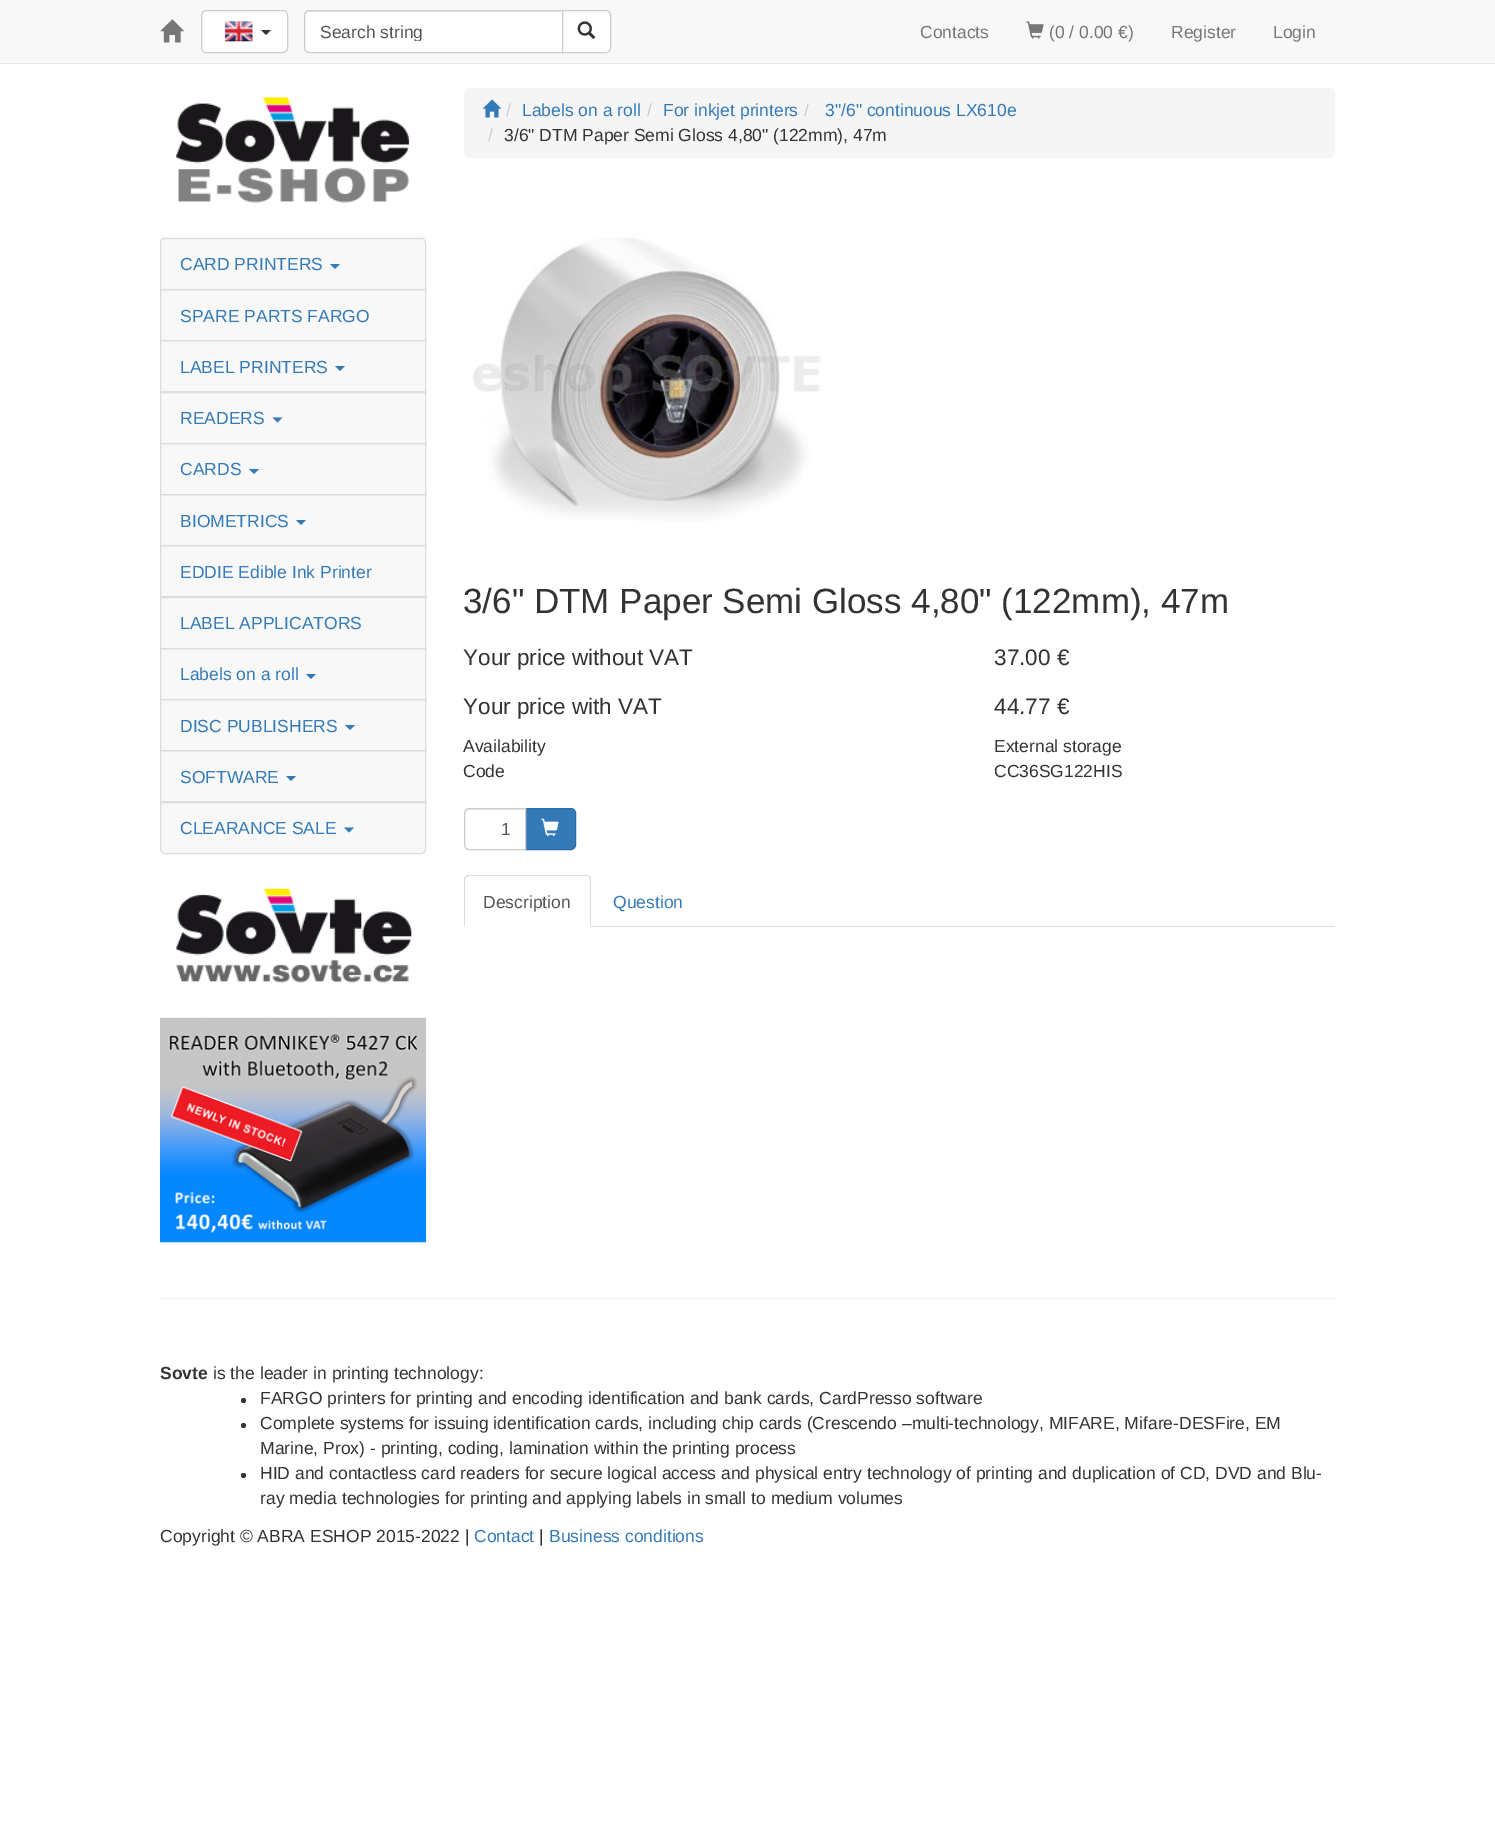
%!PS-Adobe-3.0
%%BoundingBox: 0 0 1495 1835
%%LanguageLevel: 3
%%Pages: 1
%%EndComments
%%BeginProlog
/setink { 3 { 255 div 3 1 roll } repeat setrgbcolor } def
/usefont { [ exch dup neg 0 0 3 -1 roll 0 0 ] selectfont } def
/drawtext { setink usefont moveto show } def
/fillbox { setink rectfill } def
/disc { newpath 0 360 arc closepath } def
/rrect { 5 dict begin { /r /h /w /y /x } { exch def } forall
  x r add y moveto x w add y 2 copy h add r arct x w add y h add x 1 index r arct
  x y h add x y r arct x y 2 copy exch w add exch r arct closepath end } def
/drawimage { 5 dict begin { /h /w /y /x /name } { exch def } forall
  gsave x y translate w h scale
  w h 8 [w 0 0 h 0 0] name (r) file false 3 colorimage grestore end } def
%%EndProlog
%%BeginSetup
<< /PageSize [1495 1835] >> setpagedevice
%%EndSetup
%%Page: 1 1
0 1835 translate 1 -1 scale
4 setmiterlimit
0 0 1495 1835 255 255 255 fillbox
0 0 1495 63 248 248 248 fillbox
0 63 1495 1 231 231 231 fillbox
(assets/img1.rgb) 160 19 24 24 drawimage
255 255 255 setink
201.5 10.5 86 42 4.5 rrect gsave fill grestore
204 204 204 setink
stroke
(assets/img2.rgb) 224 21 29 21 drawimage
51 51 51 setink
261 30 moveto 271 30 lineto 266 35 lineto closepath fill
255 255 255 setink
561.5 10.5 moveto 606 10.5 lineto 608.5 10.5 610.5 12.5 610.5 15 curveto 610.5 48 lineto 610.5 50.5 608.5 52.5 606 52.5 curveto 561.5 52.5 lineto closepath gsave fill grestore
204 204 204 setink
stroke
255 255 255 setink
309 10 moveto 563 10 lineto 563 53 lineto 309 53 lineto 306 53 304 51 304 48 curveto 304 15 lineto 304 12 306 10 309 10 curveto closepath fill
236 236 236 setink
309 12 moveto 561 12 lineto 561 11 lineto 309 11 lineto 307 11 305 13 305 15 curveto 305 16 lineto 305 14 307 12 309 12 curveto closepath fill
204 204 204 setink
309 10.5 moveto 562.5 10.5 lineto 562.5 52.5 lineto 309 52.5 lineto 306.5 52.5 304.5 50.5 304.5 48 curveto 304.5 15 lineto 304.5 12.5 306.5 10.5 309 10.5 curveto closepath stroke
gsave
320 21 221 20 rectclip
(Search string) 320 38 /LiberationSans-Regular 17.5 85 85 85 drawtext
grestore
(assets/img3.rgb) 577 21 19 18 drawimage
(Contacts) 920 38 /LiberationSans-Regular 17.5 119 119 119 drawtext
(assets/img4.rgb) 1026 21 18 18 drawimage
(\(0 / 0.00 €\)) 1049 38 /LiberationSans-Regular 17.5 119 119 119 drawtext
(Register) 1171 38 /LiberationSans-Regular 17.5 119 119 119 drawtext
(Login) 1273 38 /LiberationSans-Regular 17.5 119 119 119 drawtext
(assets/img5.rgb) 176 97 234 106 drawimage
248 248 248 setink
160 236 266 618 5 rrect fill
221 221 221 setink
165 238.5 moveto 421 238.5 lineto 423.5 238.5 425.5 240.5 425.5 243 curveto 425.5 289.5 lineto 160.5 289.5 lineto 160.5 243 lineto 160.5 240.5 162.5 238.5 165 238.5 curveto closepath stroke
(CARD PRINTERS) 180 270 /LiberationSans-Regular 17.5 51 122 183 drawtext
330 264 moveto 340 264 lineto 335 269 lineto closepath fill
221 221 221 setink
160.5 289.5 265 51 rectstroke
(SPARE PARTS FARGO) 180 322 /LiberationSans-Regular 17.5 51 122 183 drawtext
221 221 221 setink
160.5 340.5 265 52 rectstroke
(LABEL PRINTERS) 180 373 /LiberationSans-Regular 17.5 51 122 183 drawtext
335 366 moveto 345 366 lineto 340 371 lineto closepath fill
221 221 221 setink
160.5 391.5 265 52 rectstroke
(READERS) 180 424 /LiberationSans-Regular 17.5 51 122 183 drawtext
272.5 417.5 moveto 282.5 417.5 lineto 277.5 422.5 lineto closepath fill
221 221 221 setink
160.5 443.5 265 51 rectstroke
(CARDS) 180 475 /LiberationSans-Regular 17.5 51 122 183 drawtext
249 469 moveto 259 469 lineto 254 474 lineto closepath fill
221 221 221 setink
160.5 494.5 265 51 rectstroke
(BIOMETRICS) 180 527 /LiberationSans-Regular 17.5 51 122 183 drawtext
296 520 moveto 306 520 lineto 301 525 lineto closepath fill
221 221 221 setink
160.5 545.5 265 52 rectstroke
(EDDIE Edible Ink Printer) 180 578 /LiberationSans-Regular 17.5 51 122 183 drawtext
221 221 221 setink
160.5 596.5 265 52 rectstroke
(LABEL APPLICATORS) 180 629 /LiberationSans-Regular 17.5 51 122 183 drawtext
221 221 221 setink
160.5 648.5 265 51 rectstroke
(Labels on a roll) 180 680 /LiberationSans-Regular 17.5 51 122 183 drawtext
306 674 moveto 316 674 lineto 311 679 lineto closepath fill
221 221 221 setink
160.5 699.5 265 51 rectstroke
(DISC PUBLISHERS) 180 732 /LiberationSans-Regular 17.5 51 122 183 drawtext
345 725 moveto 355 725 lineto 350 730 lineto closepath fill
221 221 221 setink
160.5 750.5 265 52 rectstroke
(SOFTWARE) 180 783 /LiberationSans-Regular 17.5 51 122 183 drawtext
286 776 moveto 296 776 lineto 291 781 lineto closepath fill
221 221 221 setink
160.5 801.5 moveto 425.5 801.5 lineto 425.5 849 lineto 425.5 851.5 423.5 853.5 421 853.5 curveto 165 853.5 lineto 162.5 853.5 160.5 851.5 160.5 849 curveto closepath stroke
(CLEARANCE SALE) 180 834 /LiberationSans-Regular 17.5 51 122 183 drawtext
344 827.5 moveto 354 827.5 lineto 349 832.5 lineto closepath fill
(assets/img6.rgb) 176 888 236 95 drawimage
(assets/img7.rgb) 160 1017 267 226 drawimage
245 245 245 setink
464 88 871 70 5 rrect fill
(assets/img8.rgb) 482 99 20 19 drawimage
(/) 506 116 /LiberationSans-Regular 17.5 204 204 204 drawtext
(Labels on a roll) 522 116 /LiberationSans-Regular 17.5 51 122 183 drawtext
(/) 647 116 /LiberationSans-Regular 17.5 204 204 204 drawtext
(For inkjet printers) 663 116 /LiberationSans-Regular 17.5 51 122 183 drawtext
(/) 804 116 /LiberationSans-Regular 17.5 204 204 204 drawtext
(3"/6" continuous LX610e) 825 116 /LiberationSans-Regular 17.5 51 122 183 drawtext
(/) 488 141 /LiberationSans-Regular 17.5 204 204 204 drawtext
(3/6" DTM Paper Semi Gloss 4,80" \(122mm\), 47m) 504 141 /LiberationSans-Regular 17.5 51 51 51 drawtext
(assets/img9.rgb) 472 237 349 284 drawimage
(3/6" DTM Paper Semi Gloss 4,80" \(122mm\), 47m) 463 613 /LiberationSans-Regular 35 51 51 51 drawtext
(Your price without VAT) 463 665 /LiberationSans-Regular 22.5 51 51 51 drawtext
(37.00 €) 994 665 /LiberationSans-Regular 22.5 51 51 51 drawtext
(Your price with VAT) 463 714 /LiberationSans-Regular 22.5 51 51 51 drawtext
(44.77 €) 994 714 /LiberationSans-Regular 22.5 51 51 51 drawtext
(Availability) 463 752 /LiberationSans-Regular 17.5 51 51 51 drawtext
(External storage) 994 752 /LiberationSans-Regular 17.5 51 51 51 drawtext
(Code) 463 777 /LiberationSans-Regular 17.5 51 51 51 drawtext
(CC36SG122HIS) 994 777 /LiberationSans-Regular 17.5 51 51 51 drawtext
51 122 183 setink
525.5 808.5 moveto 571 808.5 lineto 573.5 808.5 575.5 810.5 575.5 813 curveto 575.5 845 lineto 575.5 847.5 573.5 849.5 571 849.5 curveto 525.5 849.5 lineto closepath gsave fill grestore
46 109 164 setink
stroke
255 255 255 setink
469 808 moveto 526 808 lineto 526 850 lineto 469 850 lineto 466 850 464 848 464 845 curveto 464 813 lineto 464 810 466 808 469 808 curveto closepath fill
236 236 236 setink
469 810 moveto 525 810 lineto 525 809 lineto 469 809 lineto 467 809 465 811 465 813 curveto 465 814 lineto 465 812 467 810 469 810 curveto closepath fill
204 204 204 setink
469 808.5 moveto 525.5 808.5 lineto 525.5 849.5 lineto 469 849.5 lineto 466.5 849.5 464.5 847.5 464.5 845 curveto 464.5 813 lineto 464.5 810.5 466.5 808.5 469 808.5 curveto closepath stroke
(1) 501 835 /LiberationSans-Regular 17.5 85 85 85 drawtext
(assets/img10.rgb) 541 818 18 19 drawimage
591 926 744 1 221 221 221 fillbox
469 875 moveto 467 875 466 876 465 877 curveto 466 877 lineto 469 876 lineto 586 876 lineto 589 877 lineto 590 877 lineto 589 876 588 875 586 875 curveto closepath fill
590 877 moveto 591 877 591 879 591 880 curveto 591 927 lineto 590 926 lineto 590 880 lineto 590 879 590 878 589 877 curveto closepath fill
465 877 moveto 464 877 464 879 464 880 curveto 464 927 lineto 465 926 lineto 465 880 lineto 465 879 465 878 466 877 curveto closepath fill
(Description) 483 908 /LiberationSans-Regular 17.5 85 85 85 drawtext
(Question) 613 908 /LiberationSans-Regular 17.5 51 122 183 drawtext
160 1298 1175 1 238 238 238 fillbox
(Sovte) 160 1379 /LiberationSans-Bold 17.5 51 51 51 drawtext
(is the leader in printing technology:) 213 1379 /LiberationSans-Regular 17.5 51 51 51 drawtext
243.5 1400.5 2.5 disc fill
(FARGO printers for printing and encoding identification and bank cards, CardPresso software) 260 1404 /LiberationSans-Regular 17.5 51 51 51 drawtext
243.5 1425.5 2.5 disc fill
(Complete systems for issuing identification cards, including chip cards \(Crescendo –multi-technology, MIFARE, Mifare-DESFire, EM) 260 1429 /LiberationSans-Regular 17.5 51 51 51 drawtext
(Marine, Prox\) - printing, coding, lamination within the printing process) 260 1454 /LiberationSans-Regular 17.5 51 51 51 drawtext
243.5 1475.5 2.5 disc fill
(HID and contactless card readers for secure logical access and physical entry technology of printing and duplication of CD, DVD and Blu-) 260 1479 /LiberationSans-Regular 17.5 51 51 51 drawtext
(ray media technologies for printing and applying labels in small to medium volumes) 260 1504 /LiberationSans-Regular 17.5 51 51 51 drawtext
(Copyright © ABRA ESHOP 2015-2022 |) 160 1542 /LiberationSans-Regular 17.5 51 51 51 drawtext
(Contact) 474 1542 /LiberationSans-Regular 17.5 51 122 183 drawtext
(|) 539 1542 /LiberationSans-Regular 17.5 51 51 51 drawtext
(Business conditions) 549 1542 /LiberationSans-Regular 17.5 51 122 183 drawtext
showpage
%%EOF
